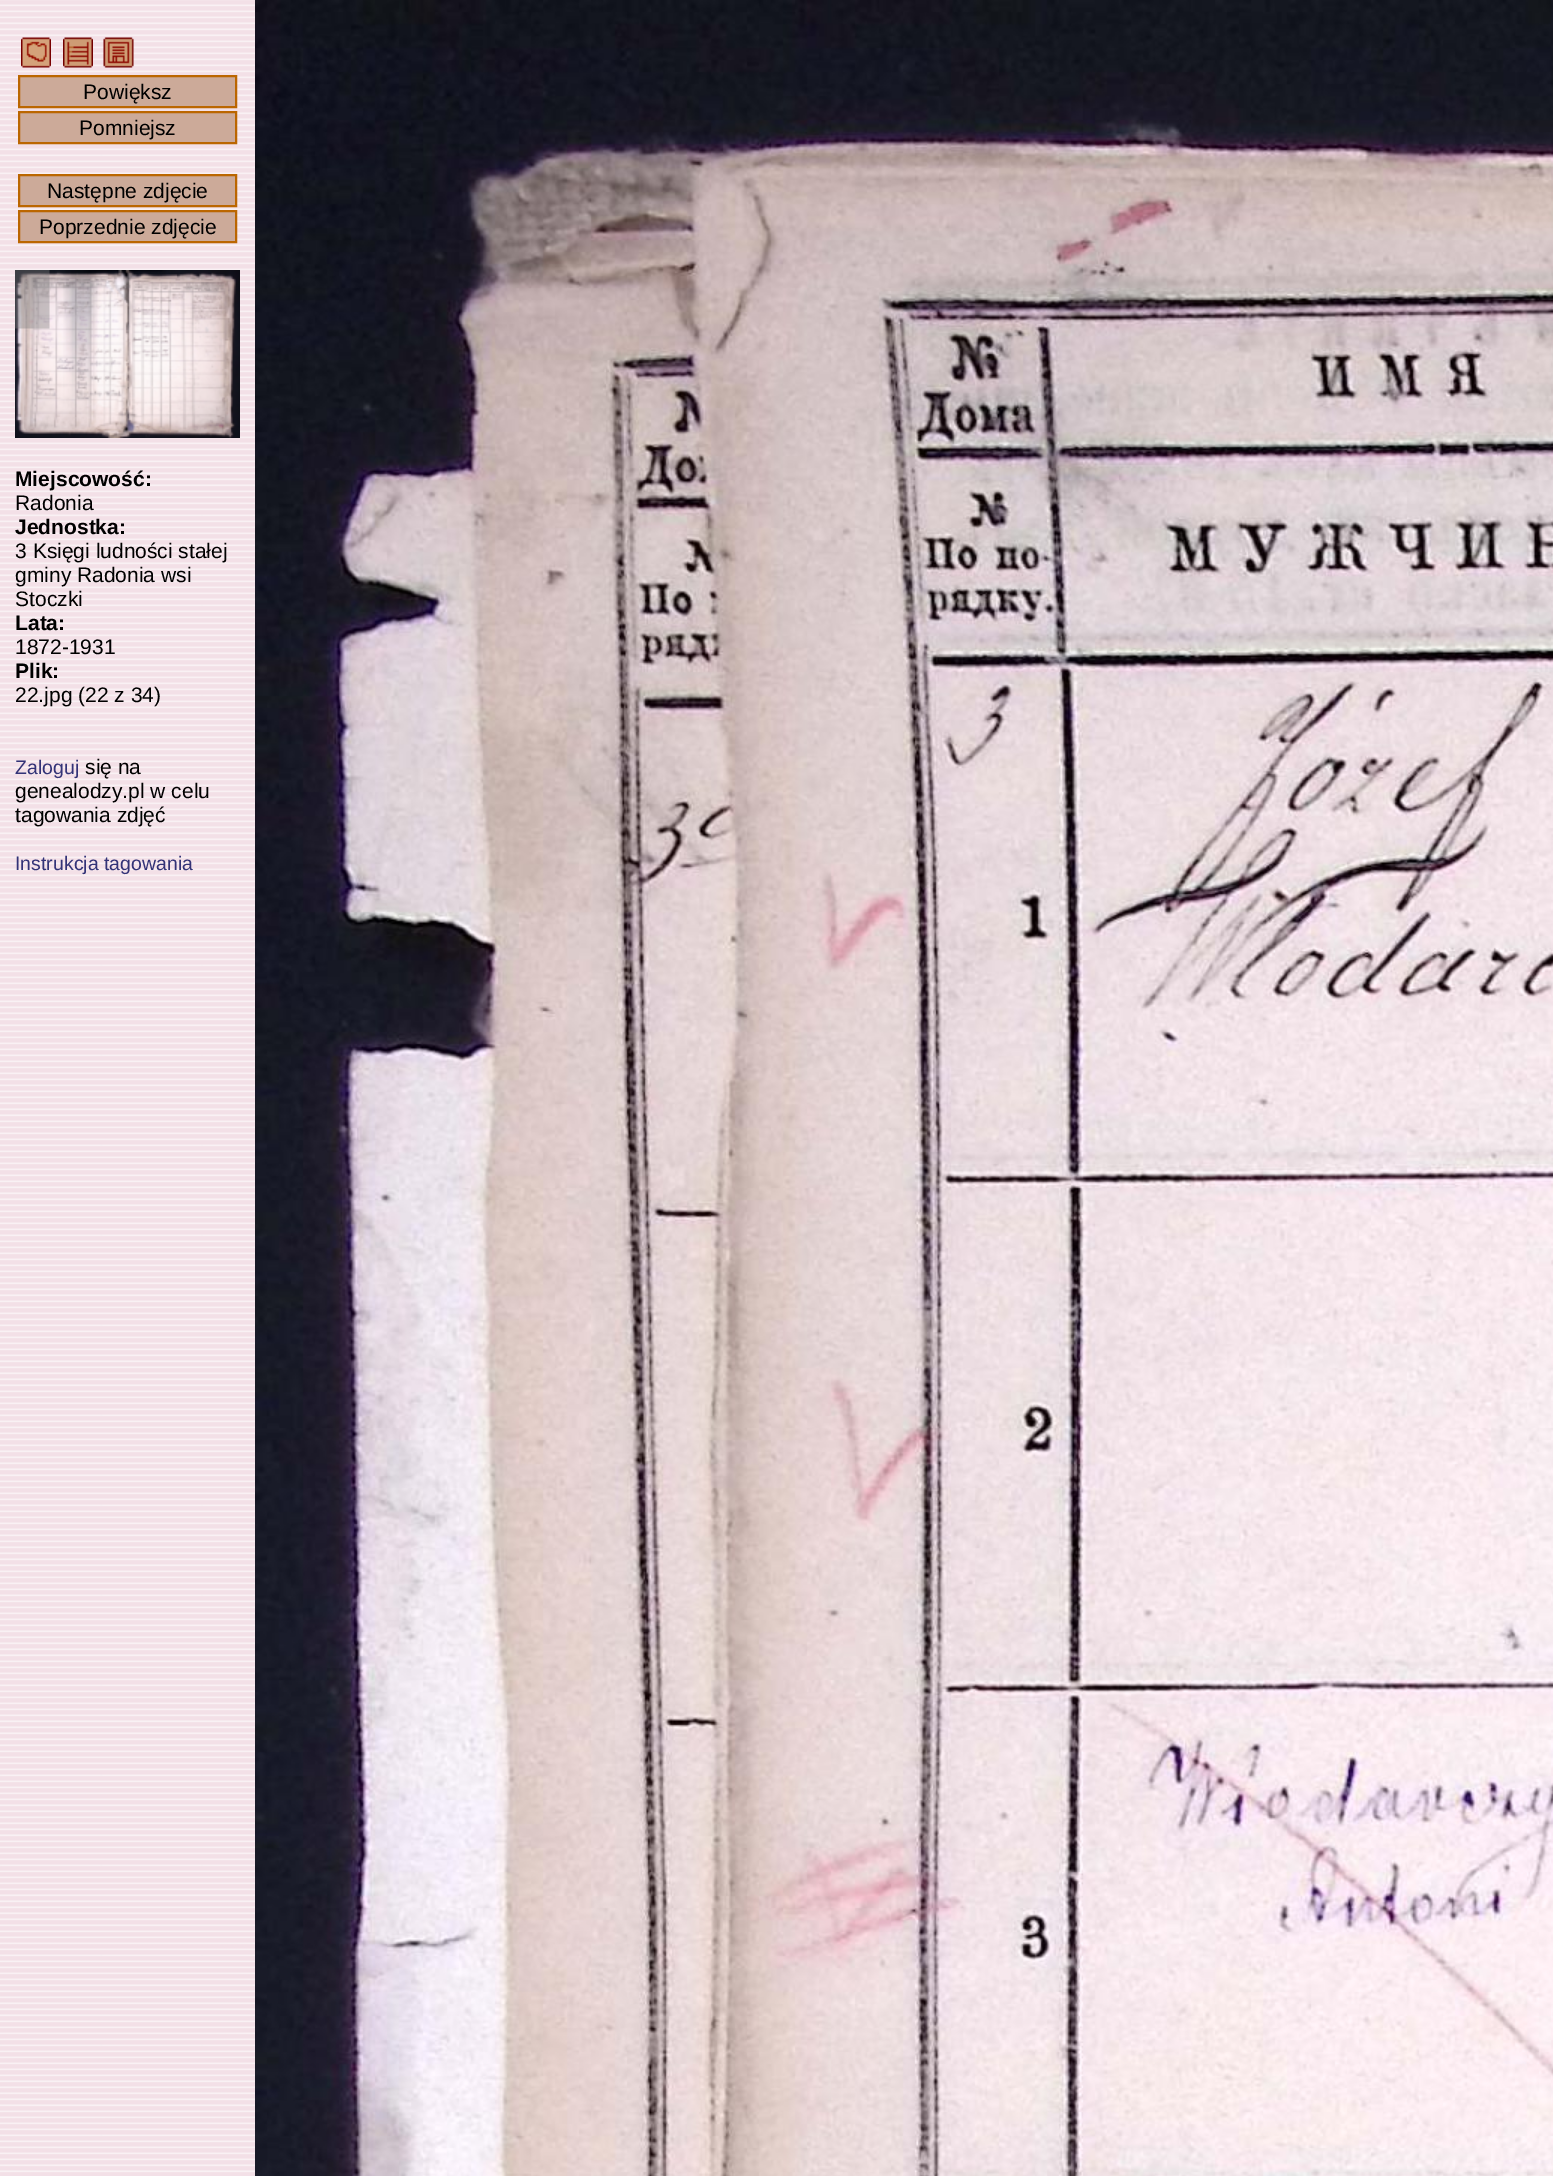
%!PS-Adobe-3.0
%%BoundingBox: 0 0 1553 2176
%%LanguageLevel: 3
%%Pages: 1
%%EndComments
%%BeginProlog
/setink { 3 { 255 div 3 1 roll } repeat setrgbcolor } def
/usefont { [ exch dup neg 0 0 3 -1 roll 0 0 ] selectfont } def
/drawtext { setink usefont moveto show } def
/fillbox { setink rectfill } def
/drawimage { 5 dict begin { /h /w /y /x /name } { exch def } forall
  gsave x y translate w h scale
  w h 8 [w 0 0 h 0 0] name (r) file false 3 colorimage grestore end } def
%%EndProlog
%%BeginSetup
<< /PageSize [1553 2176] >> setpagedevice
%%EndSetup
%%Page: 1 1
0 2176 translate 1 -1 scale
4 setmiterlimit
0 0 1553 2176 255 255 255 fillbox
(assets/img1.rgb) 0 0 255 2176 drawimage
(assets/img2.rgb) 21 37 30 31 drawimage
(assets/img3.rgb) 63 37 30 31 drawimage
(assets/img4.rgb) 103 37 31 31 drawimage
204 170 153 setink
19 76 moveto 236 76 lineto 236 107 lineto 19 107 lineto closepath gsave fill grestore
187 102 0 setink
2 setlinewidth
stroke
(Powiększ) 83 99 /LiberationSans-Regular 21 0 0 0 drawtext
204 170 153 setink
19 112 moveto 236 112 lineto 236 143 lineto 19 143 lineto closepath gsave fill grestore
187 102 0 setink
stroke
(Pomniejsz) 79 135 /LiberationSans-Regular 21 0 0 0 drawtext
204 170 153 setink
19 175 moveto 236 175 lineto 236 206 lineto 19 206 lineto closepath gsave fill grestore
187 102 0 setink
stroke
(Następne zdjęcie) 47 198 /LiberationSans-Regular 21 0 0 0 drawtext
204 170 153 setink
19 211 moveto 236 211 lineto 236 242 lineto 19 242 lineto closepath gsave fill grestore
187 102 0 setink
stroke
(Poprzednie zdjęcie) 39 234 /LiberationSans-Regular 21 0 0 0 drawtext
(assets/img5.rgb) 15 270 225 168 drawimage
(Miejscowość:) 15 486 /LiberationSans-Bold 21 0 0 0 drawtext
(Radonia) 15 510 /LiberationSans-Regular 21 0 0 0 drawtext
(Jednostka:) 15 534 /LiberationSans-Bold 21 0 0 0 drawtext
(3 Księgi ludności stałej) 15 558 /LiberationSans-Regular 21 0 0 0 drawtext
(gminy Radonia wsi) 15 582 /LiberationSans-Regular 21 0 0 0 drawtext
(Stoczki) 15 606 /LiberationSans-Regular 21 0 0 0 drawtext
(Lata:) 15 630 /LiberationSans-Bold 21 0 0 0 drawtext
(1872-1931) 15 654 /LiberationSans-Regular 21 0 0 0 drawtext
(Plik:) 15 678 /LiberationSans-Bold 21 0 0 0 drawtext
(22.jpg \(22 z 34\)) 15 702 /LiberationSans-Regular 21 0 0 0 drawtext
(Zaloguj) 15 774 /LiberationSans-Regular 19.5 51 51 119 drawtext
(się na) 85 774 /LiberationSans-Regular 21 0 0 0 drawtext
(genealodzy.pl w celu) 15 798 /LiberationSans-Regular 21 0 0 0 drawtext
(tagowania zdjęć) 15 822 /LiberationSans-Regular 21 0 0 0 drawtext
(Instrukcja tagowania) 15 870 /LiberationSans-Regular 19.5 51 51 119 drawtext
(assets/img6.rgb) 255 0 1298 2176 drawimage
showpage
%%EOF
